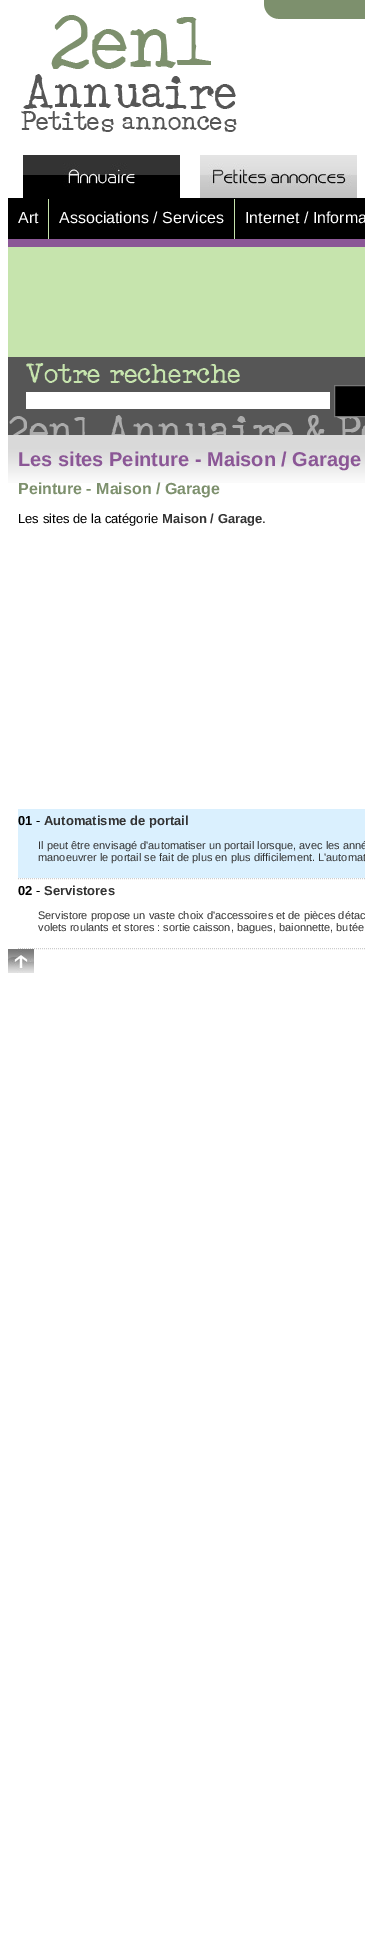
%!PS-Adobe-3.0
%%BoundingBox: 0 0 365 1942
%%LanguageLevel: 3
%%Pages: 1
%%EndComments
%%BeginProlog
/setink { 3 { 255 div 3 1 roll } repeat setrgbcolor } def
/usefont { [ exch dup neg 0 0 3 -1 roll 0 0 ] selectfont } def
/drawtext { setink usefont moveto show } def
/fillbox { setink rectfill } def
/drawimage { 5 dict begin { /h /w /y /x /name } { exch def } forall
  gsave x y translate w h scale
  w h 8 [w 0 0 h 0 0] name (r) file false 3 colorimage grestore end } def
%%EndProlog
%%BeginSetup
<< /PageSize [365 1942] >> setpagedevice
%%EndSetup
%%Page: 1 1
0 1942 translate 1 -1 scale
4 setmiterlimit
0 0 365 1942 255 255 255 fillbox
(assets/img1.rgb) 264 0 101 19 drawimage
(assets/img2.rgb) 21 15 216 117 drawimage
(assets/img3.rgb) 23 155 157 43 drawimage
(assets/img4.rgb) 200 155 157 43 drawimage
8 198 357 41 0 0 0 fillbox
48 199 1 40 198 228 173 fillbox
(Art) 18 223 /LiberationSans-Regular 16 255 255 255 drawtext
234 199 1 40 198 228 173 fillbox
(Associations / Services) 59 223 /LiberationSans-Regular 16 255 255 255 drawtext
(Internet / Informa) 245 223 /LiberationSans-Regular 16 255 255 255 drawtext
8 239 357 8 139 87 150 fillbox
8 247 357 110 198 228 173 fillbox
8 357 357 78 86 86 86 fillbox
(assets/img5.rgb) 9 363 356 72 drawimage
26 392 304 17 255 255 255 fillbox
0 0 0 setink
334.5 385.5 moveto 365.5 385.5 lineto 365.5 416.5 lineto 334.5 416.5 lineto closepath gsave fill grestore
119 119 119 setink
stroke
(assets/img6.rgb) 8 435 357 48 drawimage
(Les sites Peinture - Maison / Garage) 18 466 /LiberationSans-Bold 20 139 87 150 drawtext
(Peinture - Maison / Garage) 18 494 /LiberationSans-Bold 16 125 144 109 drawtext
(Les sites de la catégorie) 18 523 /LiberationSans-Regular 13 0 0 0 drawtext
(Maison / Garage) 162 523 /LiberationSans-Bold 13 51 51 51 drawtext
(.) 262 523 /LiberationSans-Regular 13 0 0 0 drawtext
204 204 204 setink
[1 1] 0 setdash
18 878.5 moveto 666 878.5 lineto stroke
18 809 347 69 218 240 254 fillbox
(01) 18 825 /LiberationSans-Bold 13 0 0 0 drawtext
(-) 36 825 /LiberationSans-Regular 13 0 0 0 drawtext
(Automatisme de portail) 44 825 /LiberationSans-Bold 13 51 51 51 drawtext
(Il peut être envisagé d'automatiser un portail lorsque, avec les anné) 38 849 /LiberationSans-Regular 11 51 51 51 drawtext
(manoeuvrer le portail se fait de plus en plus difficilement. L'automat) 38 861 /LiberationSans-Regular 11 51 51 51 drawtext
204 204 204 setink
18 948.5 moveto 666 948.5 lineto stroke
(02) 18 895 /LiberationSans-Bold 13 0 0 0 drawtext
(-) 36 895 /LiberationSans-Regular 13 0 0 0 drawtext
(Servistores) 44 895 /LiberationSans-Bold 13 51 51 51 drawtext
(Servistore propose un vaste choix d'accessoires et de pièces détac) 38 919 /LiberationSans-Regular 11 51 51 51 drawtext
(volets roulants et stores : sortie caisson, bagues, baionnette, butée) 38 931 /LiberationSans-Regular 11 51 51 51 drawtext
(assets/img7.rgb) 8 949 26 24 drawimage
showpage
%%EOF
